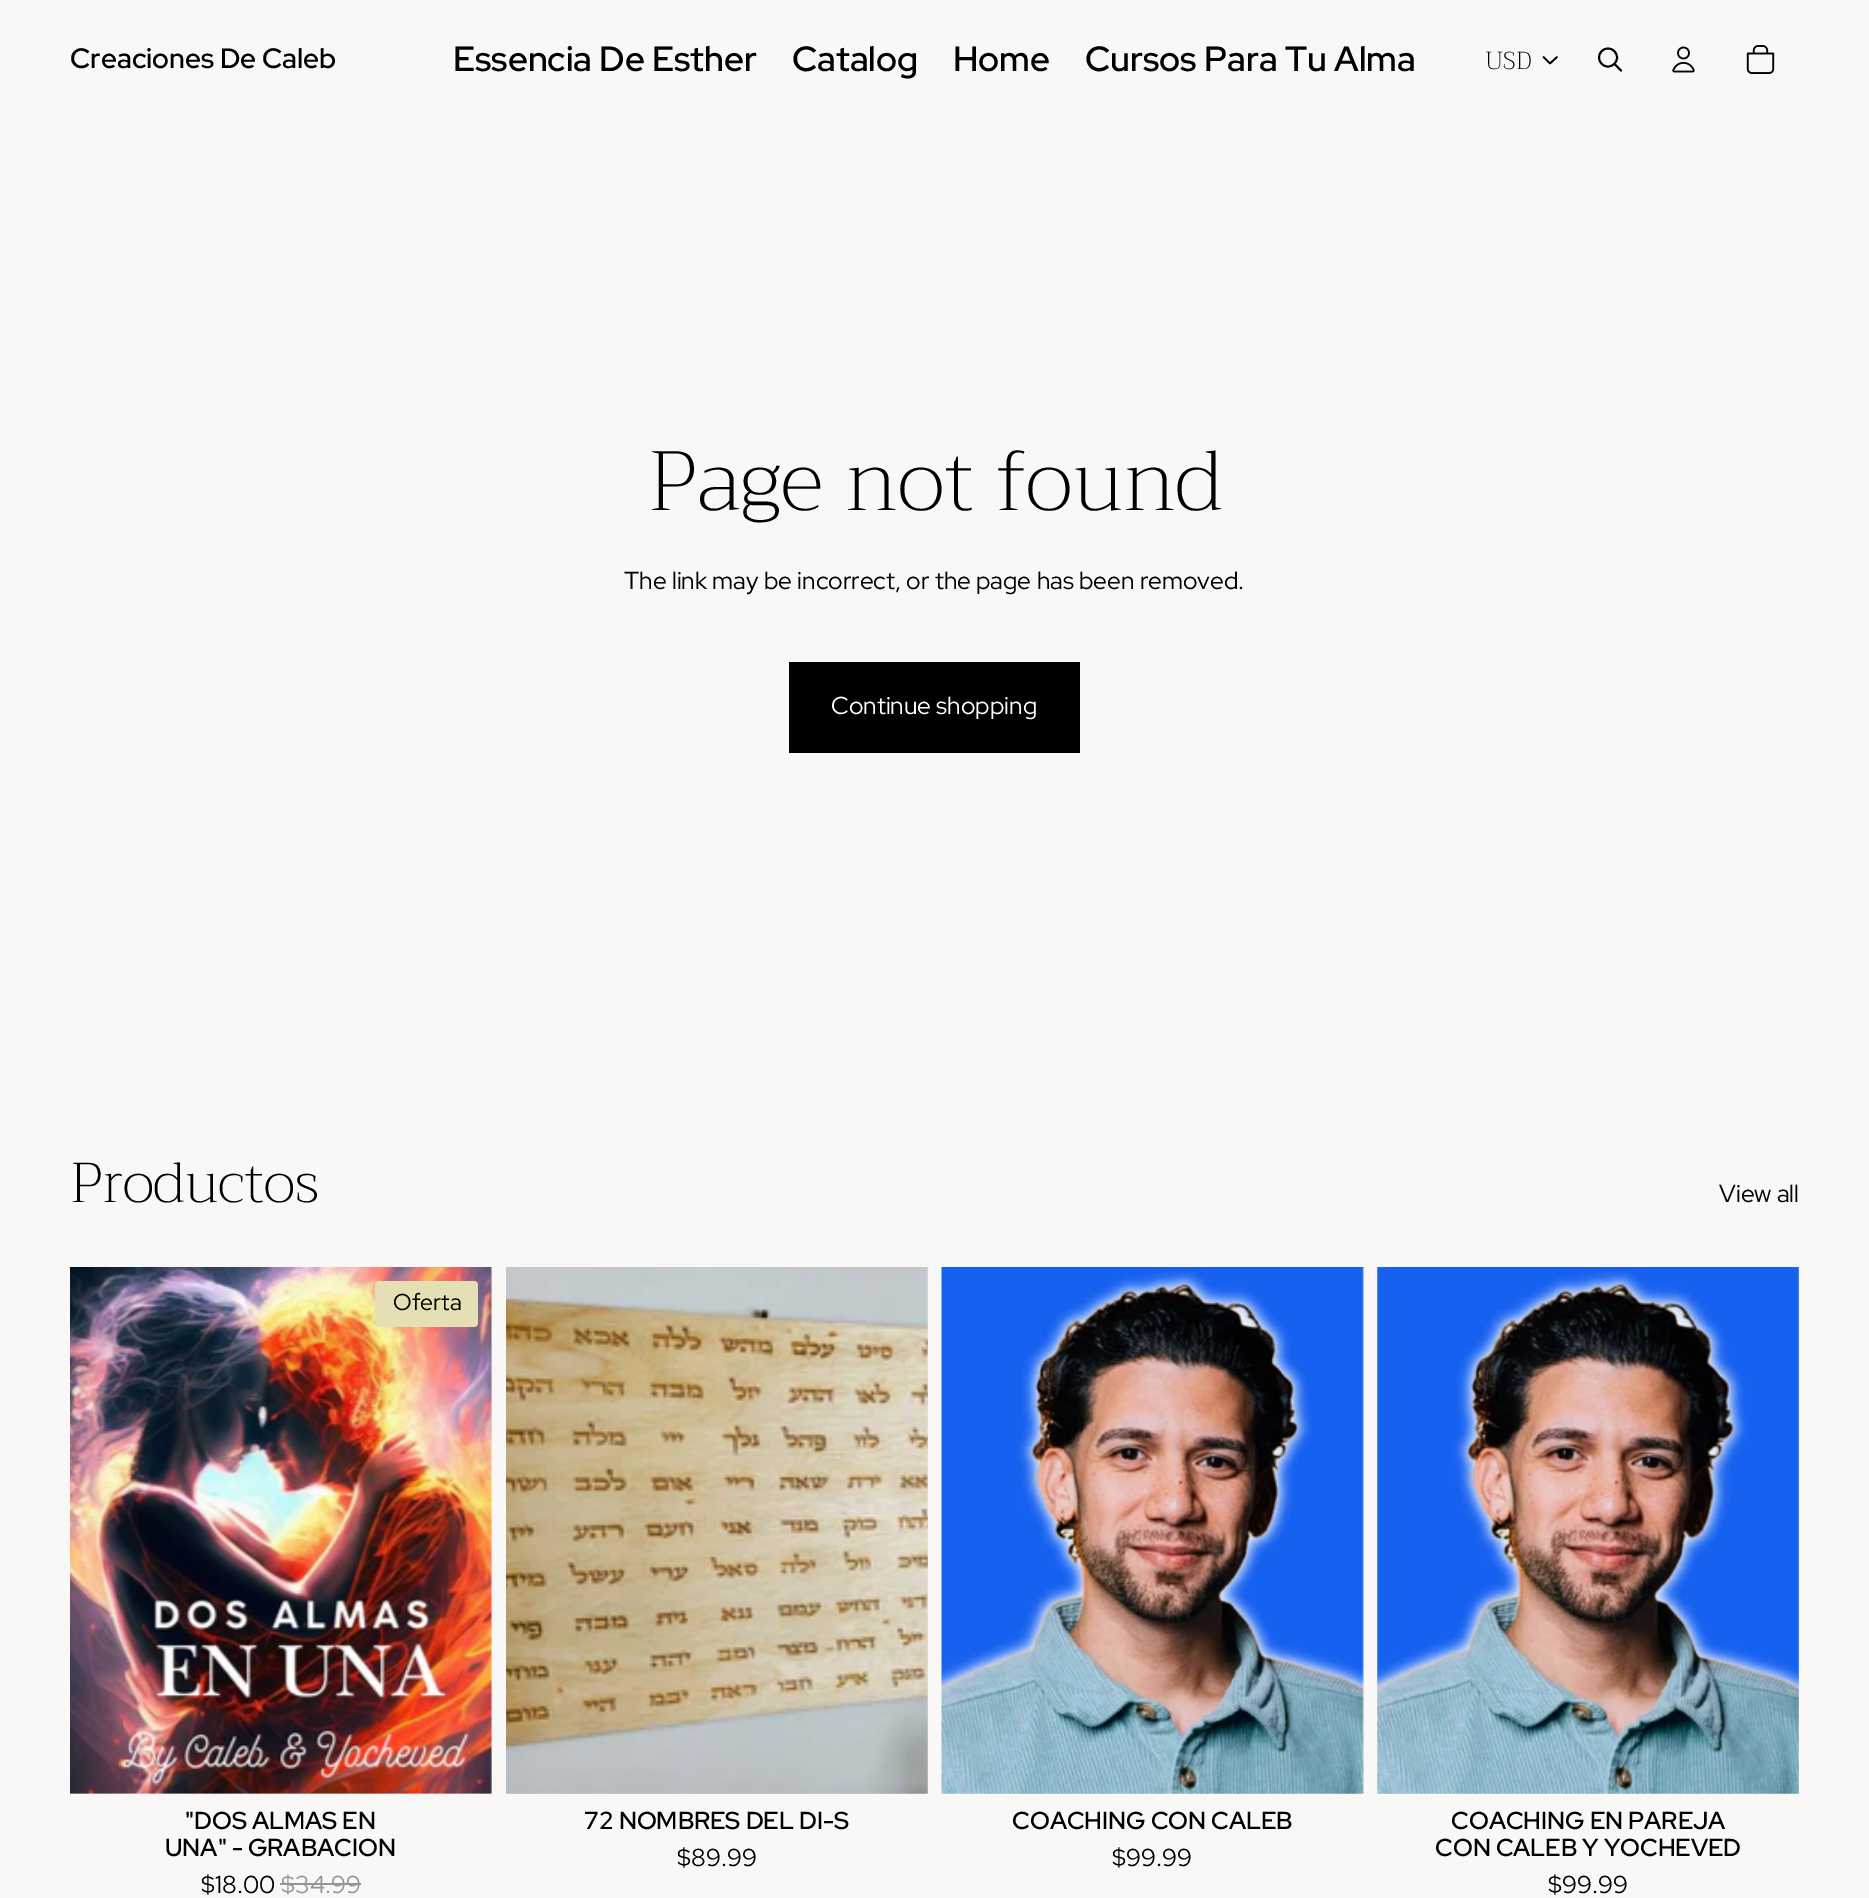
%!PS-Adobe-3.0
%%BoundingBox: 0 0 1869 1898
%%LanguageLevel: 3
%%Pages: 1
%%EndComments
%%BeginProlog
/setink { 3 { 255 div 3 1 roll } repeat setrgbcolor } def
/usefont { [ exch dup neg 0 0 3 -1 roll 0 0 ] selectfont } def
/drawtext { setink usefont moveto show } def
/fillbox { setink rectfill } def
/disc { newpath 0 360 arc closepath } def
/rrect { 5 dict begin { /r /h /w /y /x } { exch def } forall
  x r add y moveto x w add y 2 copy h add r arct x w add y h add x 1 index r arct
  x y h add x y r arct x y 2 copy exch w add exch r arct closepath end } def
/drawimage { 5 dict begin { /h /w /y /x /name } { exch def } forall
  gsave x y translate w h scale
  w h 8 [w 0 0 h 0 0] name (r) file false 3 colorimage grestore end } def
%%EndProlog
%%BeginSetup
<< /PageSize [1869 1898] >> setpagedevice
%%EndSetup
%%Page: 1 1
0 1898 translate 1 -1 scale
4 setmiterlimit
0 0 1869 1898 249 248 246 fillbox
(Creaciones De Caleb) 70 68 /RedHatDisplay-SemiBold 28 0 0 0 drawtext
(Essencia De Esther) 453 71 /RedHatDisplay-SemiBold 35 0 0 0 drawtext
(Catalog) 792 71 /RedHatDisplay-SemiBold 35 0 0 0 drawtext
(Home) 953 71 /RedHatDisplay-SemiBold 35 0 0 0 drawtext
(Cursos Para Tu Alma) 1085 71 /RedHatDisplay-SemiBold 35 0 0 0 drawtext
(USD) 1485 69 /Trirong-Light 24.5 0 0 0 drawtext
1.7 setlinewidth
1 setlinecap
1 setlinejoin
1557 57 moveto 1550 63.5 lineto 1543.5 57 lineto stroke
1.9 setlinewidth
0 setlinecap
0 setlinejoin
1608 57.5 9 disc stroke
1 setlinecap
1 setlinejoin
1615 64.5 moveto 1621 70.5 lineto stroke
(assets/img1.rgb) 1672 46 23 27 drawimage
(assets/img2.rgb) 1746 45 29 29 drawimage
(Page not found) 648 510 /Trirong-Light 84 0 0 0 drawtext
(The link may be incorrect, or the page has been removed.) 624 589 /RedHatDisplay-Regular 24.5 0 0 0 drawtext
789 662 291 91 0 0 0 fillbox
(Continue shopping) 831 714 /RedHatDisplay-Regular 24.5 255 255 255 drawtext
(Productos) 70 1202 /Trirong-Light 56 0 0 0 drawtext
(View all) 1719 1202 /RedHatDisplay-Regular 24.5 0 0 0 drawtext
(assets/img3.rgb) 70 1267 422 527 drawimage
228 223 181 setink
375 1281 103 46 4 rrect fill
(Oferta) 393 1310 /RedHatDisplay-Regular 23 0 0 0 drawtext
("DOS ALMAS EN) 185 1829 /RedHatDisplay-SemiBold 24.5 0 0 0 drawtext
(UNA" - GRABACION) 165 1856 /RedHatDisplay-SemiBold 24.5 0 0 0 drawtext
($18.00) 201 1893 /RedHatDisplay-Regular 24.5 0 0 0 drawtext
($34.99) 281 1893 /RedHatDisplay-Regular 24.5 149 149 148 drawtext
280 1883 81 2 149 149 148 fillbox
(assets/img4.rgb) 506 1267 422 527 drawimage
(72 NOMBRES DEL DI-S) 584 1829 /RedHatDisplay-SemiBold 24.5 0 0 0 drawtext
($89.99) 677 1866 /RedHatDisplay-Regular 24.5 0 0 0 drawtext
(assets/img5.rgb) 941 1267 423 527 drawimage
(COACHING CON CALEB) 1012 1829 /RedHatDisplay-SemiBold 24.5 0 0 0 drawtext
($99.99) 1112 1866 /RedHatDisplay-Regular 24.5 0 0 0 drawtext
(assets/img6.rgb) 1377 1267 422 527 drawimage
(COACHING EN PAREJA) 1451 1829 /RedHatDisplay-SemiBold 24.5 0 0 0 drawtext
(CON CALEB Y YOCHEVED) 1435 1856 /RedHatDisplay-SemiBold 24.5 0 0 0 drawtext
($99.99) 1548 1893 /RedHatDisplay-Regular 24.5 0 0 0 drawtext
showpage
%%EOF
